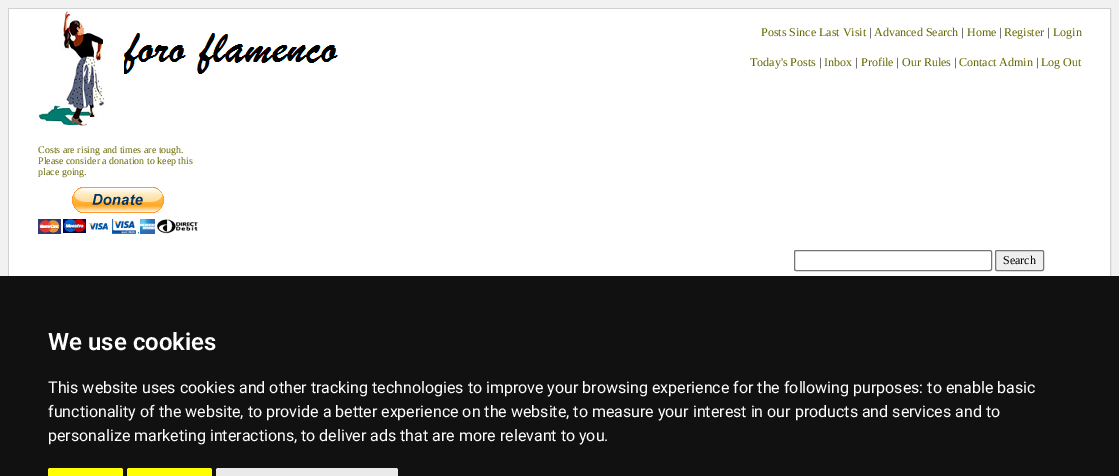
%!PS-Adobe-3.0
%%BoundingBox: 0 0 1119 476
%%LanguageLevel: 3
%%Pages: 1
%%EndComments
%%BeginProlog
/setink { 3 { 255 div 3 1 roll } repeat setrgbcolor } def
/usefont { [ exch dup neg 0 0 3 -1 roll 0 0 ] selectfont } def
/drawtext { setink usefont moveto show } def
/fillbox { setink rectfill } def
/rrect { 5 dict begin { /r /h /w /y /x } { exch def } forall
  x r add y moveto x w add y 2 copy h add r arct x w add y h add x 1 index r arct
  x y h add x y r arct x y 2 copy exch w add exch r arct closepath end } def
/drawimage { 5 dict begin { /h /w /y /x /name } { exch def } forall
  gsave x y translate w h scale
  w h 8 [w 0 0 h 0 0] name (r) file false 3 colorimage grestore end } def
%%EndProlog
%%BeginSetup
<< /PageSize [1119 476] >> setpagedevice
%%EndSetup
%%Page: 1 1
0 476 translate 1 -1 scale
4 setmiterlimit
0 0 1119 476 241 241 241 fillbox
208 208 208 setink
8.5 8.5 1102 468 rectstroke
9 9 1101 267 255 255 255 fillbox
(Posts Since Last Visit) 761 36 /LiberationSerif-Regular 12 102 102 0 drawtext
(|) 869 36 /LiberationSerif-Regular 12 0 0 0 drawtext
(Advanced Search) 874 36 /LiberationSerif-Regular 12 102 102 0 drawtext
(|) 961 36 /LiberationSerif-Regular 12 0 0 0 drawtext
(Home) 967 36 /LiberationSerif-Regular 12 102 102 0 drawtext
(|) 999 36 /LiberationSerif-Regular 12 0 0 0 drawtext
(Register) 1004 36 /LiberationSerif-Regular 12 102 102 0 drawtext
(|) 1047 36 /LiberationSerif-Regular 12 0 0 0 drawtext
(Login) 1053 36 /LiberationSerif-Regular 12 102 102 0 drawtext
(Today's Posts) 750 66 /LiberationSerif-Regular 12 102 102 0 drawtext
(|) 819 66 /LiberationSerif-Regular 12 0 0 0 drawtext
(Inbox) 824 66 /LiberationSerif-Regular 12 102 102 0 drawtext
(|) 855 66 /LiberationSerif-Regular 12 0 0 0 drawtext
(Profile) 861 66 /LiberationSerif-Regular 12 102 102 0 drawtext
(|) 896 66 /LiberationSerif-Regular 12 0 0 0 drawtext
(Our Rules) 902 66 /LiberationSerif-Regular 12 102 102 0 drawtext
(|) 954 66 /LiberationSerif-Regular 12 0 0 0 drawtext
(Contact Admin) 959 66 /LiberationSerif-Regular 12 102 102 0 drawtext
(|) 1036 66 /LiberationSerif-Regular 12 0 0 0 drawtext
(Log Out) 1041 66 /LiberationSerif-Regular 12 102 102 0 drawtext
(assets/img1.rgb) 38 11 300 115 drawimage
(Costs are rising and times are tough.) 38 153 /LiberationSerif-Regular 10 102 102 0 drawtext
(Please consider a donation to keep this) 38 164 /LiberationSerif-Regular 10 102 102 0 drawtext
(place going.) 38 175 /LiberationSerif-Regular 10 102 102 0 drawtext
(assets/img2.rgb) 38 187 160 47 drawimage
118 118 118 setink
794.5 250.5 197 20 1.5 rrect stroke
239 239 239 setink
995.5 250.5 48 20 1.5 rrect gsave fill grestore
118 118 118 setink
stroke
(Search) 1003 264 /LiberationSerif-Regular 12 0 0 0 drawtext
0 276 1119 200 17 17 17 fillbox
(We use cookies) 48 350 /Roboto-SemiBold 24 255 255 255 drawtext
(This website uses cookies and other tracking technologies to improve your browsing experience for the following purposes: to enable basic) 48 393 /Roboto-Regular 16 255 255 255 drawtext
(functionality of the website, to provide a better experience on the website, to measure your interest in our products and services and to) 48 417 /Roboto-Regular 16 255 255 255 drawtext
(personalize marketing interactions, to deliver ads that are more relevant to you.) 48 441 /Roboto-Regular 16 255 255 255 drawtext
255 255 0 setink
50 468 moveto 121 468 lineto 122 468 123 469 123 470 curveto 123 476 lineto 48 476 lineto 48 470 lineto 48 469 49 468 50 468 curveto closepath fill
129 468 moveto 210 468 lineto 211 468 212 469 212 470 curveto 212 476 lineto 127 476 lineto 127 470 lineto 127 469 128 468 129 468 curveto closepath fill
234 234 234 setink
218 468 moveto 396 468 lineto 397 468 398 469 398 470 curveto 398 476 lineto 216 476 lineto 216 470 lineto 216 469 217 468 218 468 curveto closepath fill
showpage
%%EOF
